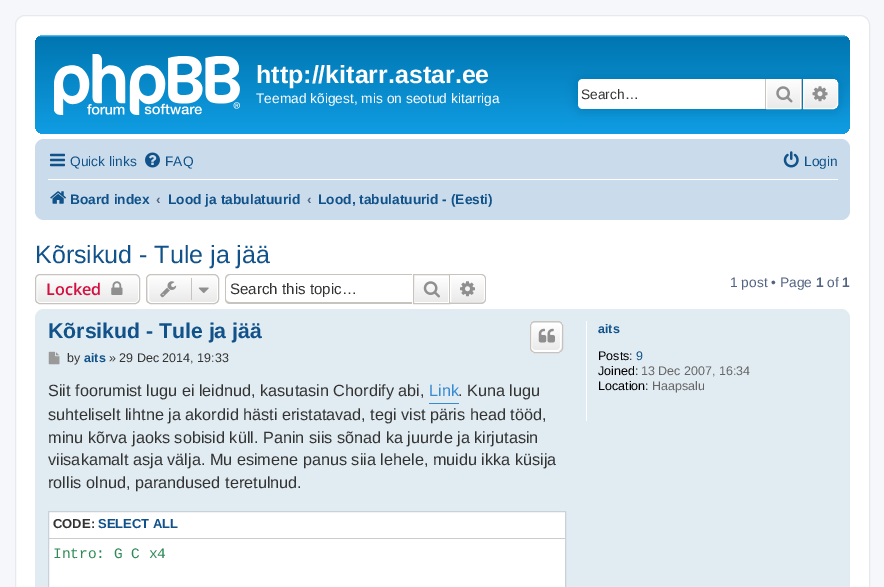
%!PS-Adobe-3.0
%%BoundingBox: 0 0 884 587
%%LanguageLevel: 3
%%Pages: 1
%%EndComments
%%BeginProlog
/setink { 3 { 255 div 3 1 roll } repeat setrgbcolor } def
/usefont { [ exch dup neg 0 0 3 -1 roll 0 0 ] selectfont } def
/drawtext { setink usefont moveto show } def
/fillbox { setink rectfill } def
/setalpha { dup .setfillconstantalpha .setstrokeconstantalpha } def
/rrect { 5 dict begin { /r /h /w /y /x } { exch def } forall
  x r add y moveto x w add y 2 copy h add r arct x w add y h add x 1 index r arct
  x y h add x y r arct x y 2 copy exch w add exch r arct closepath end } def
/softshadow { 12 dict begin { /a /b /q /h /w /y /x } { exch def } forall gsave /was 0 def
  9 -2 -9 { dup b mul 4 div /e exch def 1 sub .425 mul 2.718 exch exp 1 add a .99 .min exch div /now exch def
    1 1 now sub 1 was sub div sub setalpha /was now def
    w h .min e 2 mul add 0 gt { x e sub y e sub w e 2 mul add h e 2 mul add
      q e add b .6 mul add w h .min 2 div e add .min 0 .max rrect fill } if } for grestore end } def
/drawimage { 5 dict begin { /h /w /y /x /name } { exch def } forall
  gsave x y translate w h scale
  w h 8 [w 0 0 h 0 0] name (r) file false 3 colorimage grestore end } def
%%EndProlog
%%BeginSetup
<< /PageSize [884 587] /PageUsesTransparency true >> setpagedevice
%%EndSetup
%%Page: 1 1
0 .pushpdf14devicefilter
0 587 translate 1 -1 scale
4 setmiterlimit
0 0 884 587 245 247 250 fillbox
255 255 255 setink
15.5 15.5 854 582 9.5 rrect gsave fill grestore
230 233 237 setink
stroke
gsave 35 35 815 99 9 rrect clip newpath
<< /ShadingType 2 /ColorSpace /DeviceRGB /Coords [443 35 443 150] /Extend [true true] /Function << /FunctionType 3 /Domain [0 1] /Functions [<< /FunctionType 2 /Domain [0 1] /C0 [0.416 0.808 1] /C1 [0 0.463 0.694] /N 1 >> << /FunctionType 2 /Domain [0 1] /C0 [0 0.463 0.694] /C1 [0.071 0.639 0.922] /N 1 >>] /Bounds [0.02] /Encode [0 1 0 1] >> >> shfill grestore
(assets/img1.rgb) 54 54 186 61 drawimage
(http://kitarr.astar.ee) 256 83 /LiberationSans-Bold 25 255 255 255 drawtext
(Teemad kõigest, mis on seotud kitarriga) 256 103 /LiberationSans-Regular 13.75 255 255 255 drawtext
0 117 176 setink
578 79 260 30 5 6 1 softshadow
255 255 255 setink
583 79 moveto 765 79 lineto 765 109 lineto 583 109 lineto 580 109 578 107 578 104 curveto 578 84 lineto 578 81 580 79 583 79 curveto closepath fill
(Search…) 581 99 /LiberationSans-Regular 13.75 51 51 51 drawtext
gsave 767 80 moveto 800 80 lineto 800 108 lineto 767 108 lineto closepath clip newpath
<< /ShadingType 2 /ColorSpace /DeviceRGB /Coords [784 79 784 109] /Extend [true true] /Function << /FunctionType 2 /Domain [0 1] /C0 [1 1 1] /C1 [0.914 0.914 0.914] /N 1 >> >> shfill grestore
255 255 255 setink
766.5 79.5 34 29 rectstroke
801 79 1 30 199 195 191 fillbox
765 79 1 30 199 195 191 fillbox
(assets/img2.rgb) 776 86 17 17 drawimage
gsave 803.5 79.5 moveto 833 79.5 lineto 835.5 79.5 837.5 81.5 837.5 84 curveto 837.5 104 lineto 837.5 106.5 835.5 108.5 833 108.5 curveto 803.5 108.5 lineto closepath clip newpath
<< /ShadingType 2 /ColorSpace /DeviceRGB /Coords [820 79 820 109] /Extend [true true] /Function << /FunctionType 2 /Domain [0 1] /C0 [1 1 1] /C1 [0.914 0.914 0.914] /N 1 >> >> shfill grestore
255 255 255 setink
803.5 79.5 moveto 833 79.5 lineto 835.5 79.5 837.5 81.5 837.5 84 curveto 837.5 104 lineto 837.5 106.5 835.5 108.5 833 108.5 curveto 803.5 108.5 lineto closepath stroke
(assets/img3.rgb) 812 86 16 16 drawimage
202 220 235 setink
35 139 815 81 9 rrect fill
(assets/img4.rgb) 50 153 15 14 drawimage
(Quick links) 70 166 /LiberationSans-Regular 13.75 16 82 137 drawtext
(assets/img5.rgb) 145 152 15 16 drawimage
(FAQ) 165 166 /LiberationSans-Regular 13.75 16 82 137 drawtext
(assets/img6.rgb) 783 151 16 17 drawimage
(Login) 804 166 /LiberationSans-Regular 13.75 16 82 137 drawtext
48 179 790 1 255 255 255 fillbox
(assets/img7.rgb) 50 191 16 13 drawimage
(Board index) 70 204 /LiberationSans-Bold 13.75 16 82 137 drawtext
(‹) 156 204 /LiberationSans-Bold 13.75 83 100 130 drawtext
(Lood ja tabulatuurid) 168 204 /LiberationSans-Bold 13.75 16 82 137 drawtext
(‹) 307 204 /LiberationSans-Bold 13.75 83 100 130 drawtext
(Lood, tabulatuurid - \(Eesti\)) 318 204 /LiberationSans-Bold 13.75 16 82 137 drawtext
(Kõrsikud - Tule ja jää) 35 263 /LiberationSans-Regular 25 16 82 137 drawtext
gsave
35 274 105 30 5 rrect clip newpath
gsave 35 275 moveto 140 275 lineto 140 303 lineto 35 303 lineto closepath clip newpath
<< /ShadingType 2 /ColorSpace /DeviceRGB /Coords [88 275 88 303] /Extend [true true] /Function << /FunctionType 2 /Domain [0 1] /C0 [1 1 1] /C1 [0.914 0.914 0.914] /N 1 >> >> shfill grestore
grestore
255 255 255 setink
36.5 275.5 102 27 3.5 rrect stroke
199 195 191 setink
35.5 274.5 104 29 4.5 rrect stroke
(Locked) 46 295 /OpenSans-SemiBold 16.25 211 17 65 drawtext
(assets/img8.rgb) 111 281 12 14 drawimage
gsave
146 274 73 30 5 rrect clip newpath
gsave 146 275 moveto 219 275 lineto 219 303 lineto 146 303 lineto closepath clip newpath
<< /ShadingType 2 /ColorSpace /DeviceRGB /Coords [183 275 183 303] /Extend [true true] /Function << /FunctionType 2 /Domain [0 1] /C0 [1 1 1] /C1 [0.914 0.914 0.914] /N 1 >> >> shfill grestore
grestore
255 255 255 setink
148.5 275.5 69 27 3.5 rrect stroke
199 195 191 setink
146.5 274.5 72 29 4.5 rrect stroke
(assets/img9.rgb) 160 281 17 17 drawimage
191 278 1 22 199 195 191 fillbox
(assets/img10.rgb) 198 287 11 6 drawimage
230 274 moveto 412 274 lineto 412 304 lineto 230 304 lineto 227 304 225 302 225 299 curveto 225 279 lineto 225 276 227 274 230 274 curveto closepath 230 275 moveto 412 275 lineto 412 302 lineto 230 302 lineto 228 302 226 301 226 299 curveto 226 279 lineto 226 277 228 275 230 275 curveto closepath eofill
(Search this topic…) 230 294 /LiberationSans-Regular 15.1 51 51 51 drawtext
gsave 415 278 moveto 448 278 lineto 448 302 lineto 415 302 lineto closepath clip newpath
<< /ShadingType 2 /ColorSpace /DeviceRGB /Coords [431 275 431 303] /Extend [true true] /Function << /FunctionType 2 /Domain [0 1] /C0 [1 1 1] /C1 [0.914 0.914 0.914] /N 1 >> >> shfill grestore
199 195 191 setink
413.5 274.5 36 29 rectstroke
(assets/img11.rgb) 423 281 17 17 drawimage
gsave 450.5 275.5 moveto 481 275.5 lineto 483 275.5 484.5 277 484.5 279 curveto 484.5 299 lineto 484.5 301 483 302.5 481 302.5 curveto 450.5 302.5 lineto closepath clip newpath
<< /ShadingType 2 /ColorSpace /DeviceRGB /Coords [468 275 468 303] /Extend [true true] /Function << /FunctionType 2 /Domain [0 1] /C0 [1 1 1] /C1 [0.914 0.914 0.914] /N 1 >> >> shfill grestore
255 255 255 setink
450.5 275.5 moveto 481 275.5 lineto 483 275.5 484.5 277 484.5 279 curveto 484.5 299 lineto 484.5 301 483 302.5 481 302.5 curveto 450.5 302.5 lineto closepath stroke
199 195 191 setink
450 274 moveto 481 274 lineto 484 274 486 276 486 279 curveto 486 299 lineto 486 301.5 484 304 481 304 curveto 450 304 lineto closepath 450 275 moveto 481 275 lineto 483.5 275 485 276.5 485 279 curveto 485 299 lineto 485 301 483.5 302.5 481 302.5 curveto 450 302.5 lineto closepath eofill
(assets/img12.rgb) 460 281 15 16 drawimage
(1 post • Page) 730 287 /LiberationSans-Regular 13.75 83 100 130 drawtext
(1) 816 287 /LiberationSans-Bold 13.75 83 100 130 drawtext
(of) 827 287 /LiberationSans-Regular 13.75 83 100 130 drawtext
(1) 842 287 /LiberationSans-Bold 13.75 83 100 130 drawtext
225 235 242 setink
35 309 815 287 9 rrect fill
(Kõrsikud - Tule ja jää) 48 338 /LiberationSans-Bold 21.25 16 82 137 drawtext
gsave
530 321 33 32 5 rrect clip newpath
gsave 530 321 moveto 563 321 lineto 563 323 lineto 530 323 lineto closepath clip newpath
<< /ShadingType 2 /ColorSpace /DeviceRGB /Coords [546 294 546 323] /Extend [true true] /Function << /FunctionType 2 /Domain [0 1] /C0 [1 1 1] /C1 [0.914 0.914 0.914] /N 1 >> >> shfill grestore
gsave 530 323 moveto 563 323 lineto 563 351 lineto 530 351 lineto closepath clip newpath
<< /ShadingType 2 /ColorSpace /DeviceRGB /Coords [546 323 546 351] /Extend [true true] /Function << /FunctionType 2 /Domain [0 1] /C0 [1 1 1] /C1 [0.914 0.914 0.914] /N 1 >> >> shfill grestore
gsave 530 351 moveto 563 351 lineto 563 353 lineto 530 353 lineto closepath clip newpath
<< /ShadingType 2 /ColorSpace /DeviceRGB /Coords [546 351 546 380] /Extend [true true] /Function << /FunctionType 2 /Domain [0 1] /C0 [1 1 1] /C1 [0.914 0.914 0.914] /N 1 >> >> shfill grestore
grestore
255 255 255 setink
531.5 323.5 29 27 3.5 rrect stroke
199 195 191 setink
530.5 321.5 32 31 4.5 rrect stroke
(assets/img13.rgb) 538 328 17 15 drawimage
(assets/img14.rgb) 48 351 12 14 drawimage
(by) 67 362 /LiberationSans-Regular 12.5 51 51 51 drawtext
(aits) 84 362 /LiberationSans-Bold 12.5 16 82 137 drawtext
(» 29 Dec 2014, 19:33) 109 362 /LiberationSans-Regular 12.5 51 51 51 drawtext
(Siit foorumist lugu ei leidnud, kasutasin Chordify abi,) 48 396 /LiberationSans-Regular 16.25 51 51 51 drawtext
429 403 30 1 54 138 210 fillbox
(Link) 429 396 /LiberationSans-Regular 16.25 54 138 210 drawtext
(. Kuna lugu) 458 396 /LiberationSans-Regular 16.25 51 51 51 drawtext
(suhteliselt lihtne ja akordid hästi eristatavad, tegi vist päris head tööd,) 48 420 /LiberationSans-Regular 16.25 51 51 51 drawtext
(minu kõrva jaoks sobisid küll. Panin siis sõnad ka juurde ja kirjutasin) 48 443 /LiberationSans-Regular 16.25 51 51 51 drawtext
(viisakamalt asja välja. Mu esimene panus siia lehele, muidu ikka küsija) 48 465 /LiberationSans-Regular 16.25 51 51 51 drawtext
(rollis olnud, parandused teretulnud.) 48 488 /LiberationSans-Regular 16.25 51 51 51 drawtext
255 255 255 setink
48.5 511.5 moveto 565.5 511.5 lineto 565.5 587.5 lineto 48.5 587.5 lineto closepath gsave fill grestore
201 210 216 setink
stroke
49 538 516 1 204 204 204 fillbox
(CODE:) 53 528 /LiberationSans-Bold 13 51 51 51 drawtext
(SELECT ALL) 98 528 /LiberationSans-Bold 13 16 82 137 drawtext
(Intro: G C x4) 53 558 /LiberationMono-Regular 14.5 46 139 87 drawtext
586 321 1 100 255 255 255 fillbox
(aits) 598 333 /LiberationSans-Bold 12.5 16 82 137 drawtext
(Posts:) 598 360 /LiberationSans-Regular 12.5 0 0 0 drawtext
(9) 636 360 /LiberationSans-Regular 12.5 16 82 137 drawtext
(Joined:) 598 375 /LiberationSans-Regular 12.5 0 0 0 drawtext
(13 Dec 2007, 16:34) 641 375 /LiberationSans-Regular 12.5 102 102 102 drawtext
(Location:) 598 390 /LiberationSans-Regular 12.5 0 0 0 drawtext
(Haapsalu) 652 390 /LiberationSans-Regular 12.5 102 102 102 drawtext
.poppdf14devicefilter showpage
%%EOF
